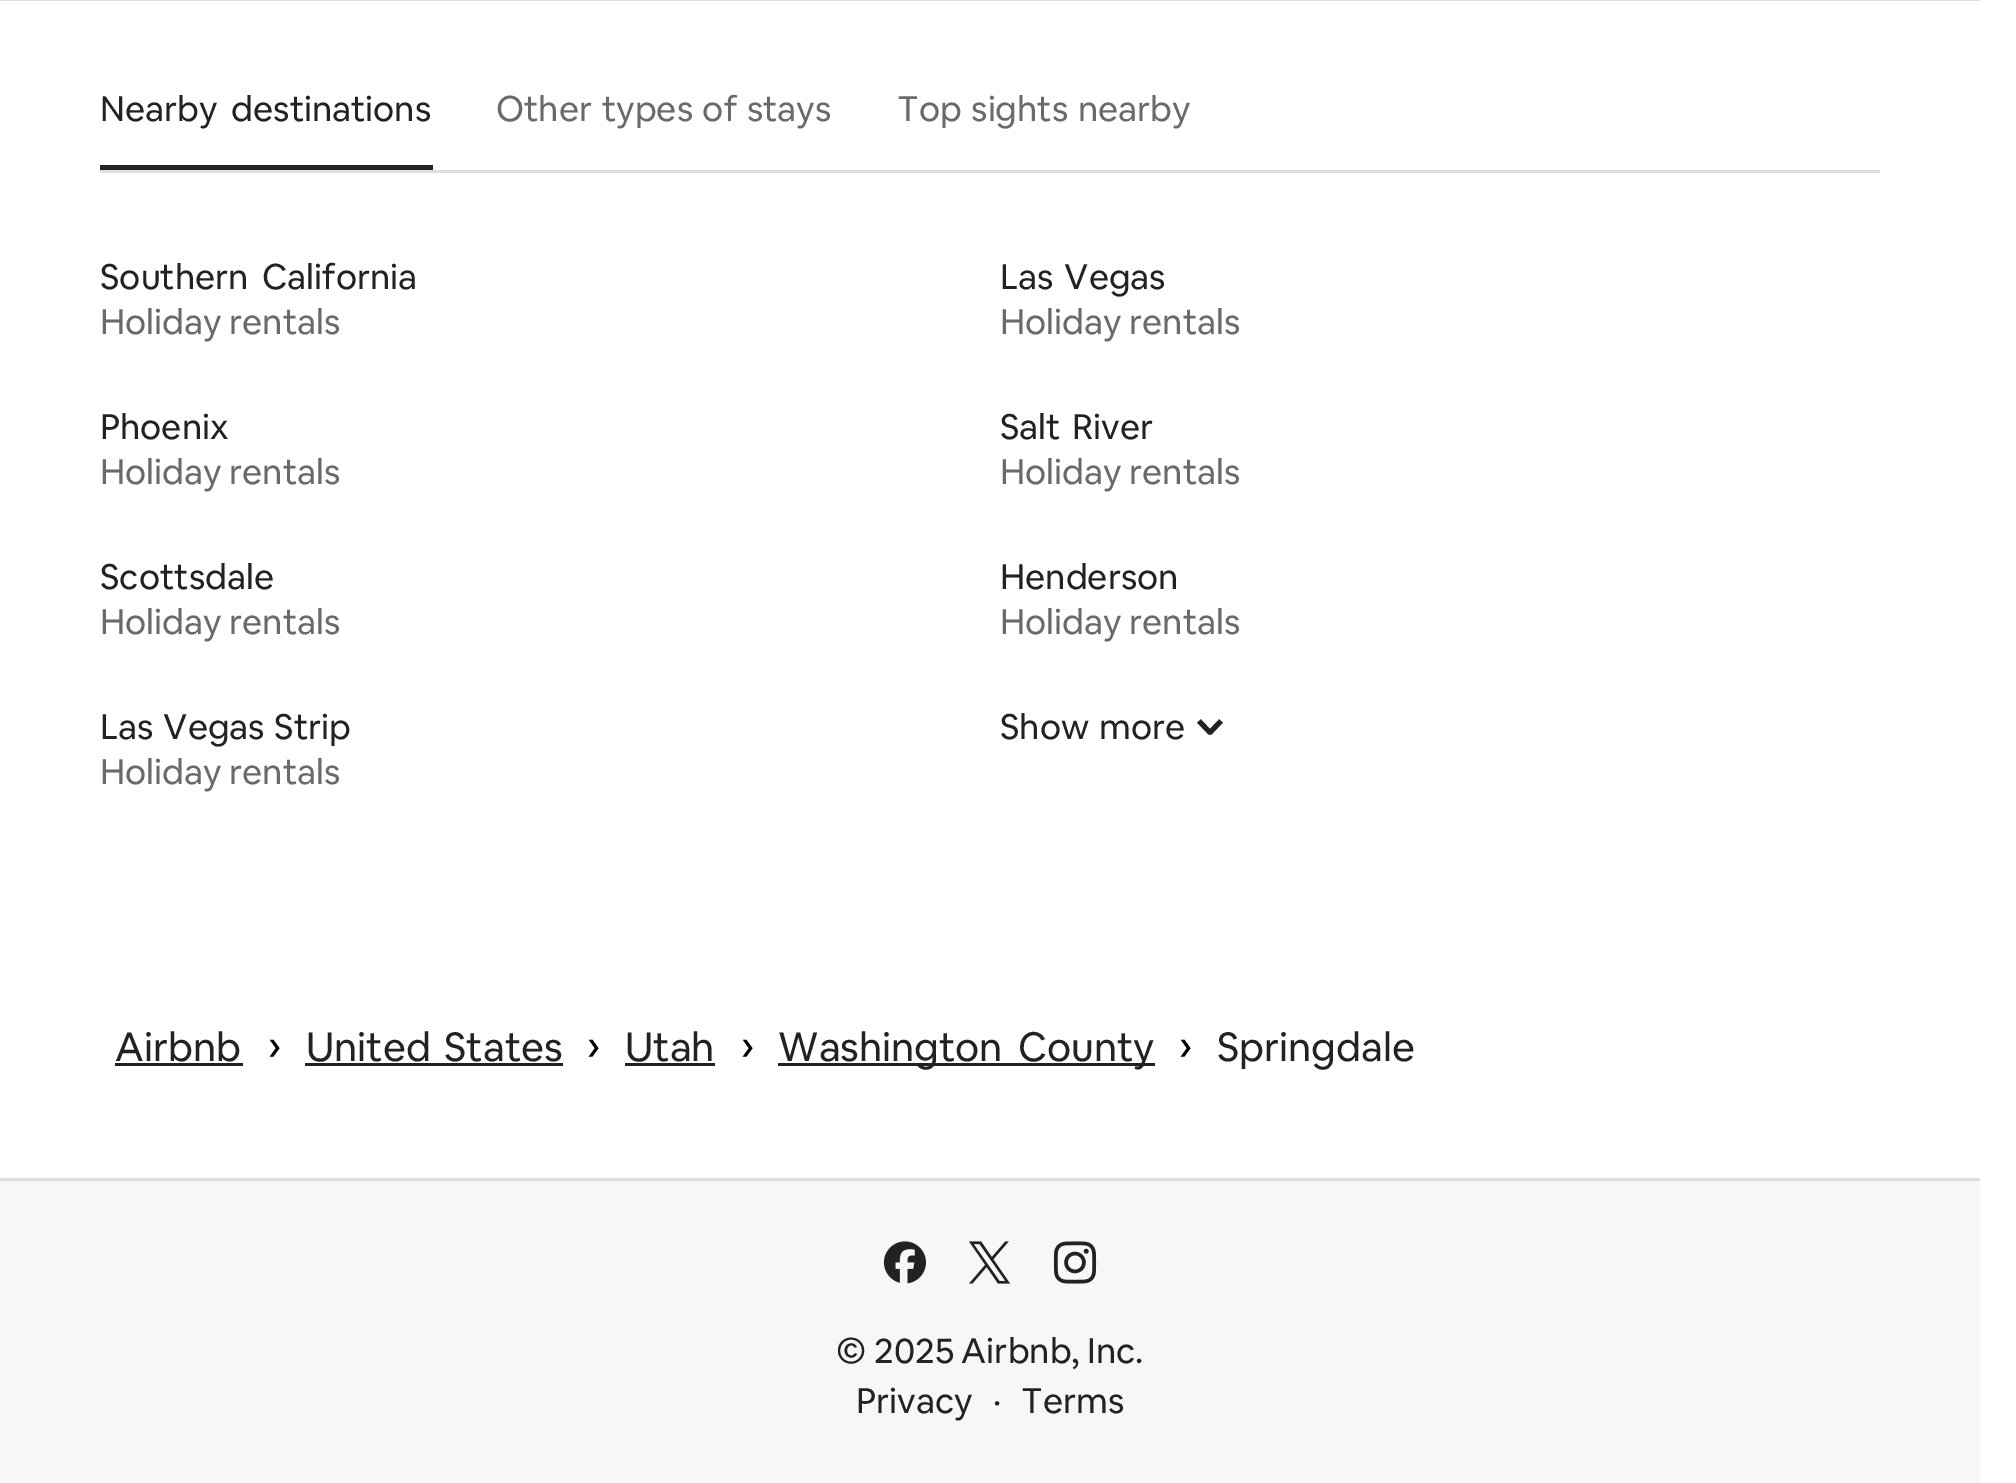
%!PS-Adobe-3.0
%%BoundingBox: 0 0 2016 1483
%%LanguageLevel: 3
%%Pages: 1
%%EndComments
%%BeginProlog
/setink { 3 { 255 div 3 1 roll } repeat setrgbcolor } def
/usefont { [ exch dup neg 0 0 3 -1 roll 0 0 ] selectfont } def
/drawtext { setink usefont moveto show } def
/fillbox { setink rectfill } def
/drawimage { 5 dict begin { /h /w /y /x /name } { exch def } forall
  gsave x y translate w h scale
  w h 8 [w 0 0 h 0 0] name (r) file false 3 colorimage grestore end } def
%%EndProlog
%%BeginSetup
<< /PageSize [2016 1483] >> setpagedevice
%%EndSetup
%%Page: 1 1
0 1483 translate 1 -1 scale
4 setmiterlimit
0 0 2016 1483 255 255 255 fillbox
0 0 1980 1 221 221 221 fillbox
/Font-Regular 35 usefont
34 34 34 setink
100 121 moveto 6 0 32 (Nearby destinations) widthshow
100 165 333 5 34 34 34 fillbox
106 106 106 setink
496 121 moveto 2 0 32 (Other types of stays) widthshow
897 121 moveto 2 0 32 (Top sights nearby) widthshow
100 170 1780 3 221 221 221 fillbox
34 34 34 setink
100 289 moveto 6 0 32 (Southern California) widthshow
(Holiday rentals) 100 334 /Font-Regular 35 106 106 106 drawtext
34 34 34 setink
1000 289 moveto 3 0 32 (Las Vegas) widthshow
(Holiday rentals) 1000 334 /Font-Regular 35 106 106 106 drawtext
(Phoenix) 100 439 /Font-Regular 35 34 34 34 drawtext
(Holiday rentals) 100 484 /Font-Regular 35 106 106 106 drawtext
34 34 34 setink
1000 439 moveto 4 0 32 (Salt River) widthshow
(Holiday rentals) 1000 484 /Font-Regular 35 106 106 106 drawtext
(Scottsdale) 100 589 /Font-Regular 35 34 34 34 drawtext
(Holiday rentals) 100 634 /Font-Regular 35 106 106 106 drawtext
(Henderson) 1000 589 /Font-Regular 35 34 34 34 drawtext
(Holiday rentals) 1000 634 /Font-Regular 35 106 106 106 drawtext
34 34 34 setink
100 739 moveto 2 0 32 (Las Vegas Strip) widthshow
(Holiday rentals) 100 784 /Font-Regular 35 106 106 106 drawtext
34 34 34 setink
1000 739 moveto 3 0 32 (Show more) widthshow
5 setlinewidth
1221 721 moveto 1210.5 732 lineto 1210.5 732 1209.5 732 1209.5 732 curveto 1199 721 lineto stroke
(Airbnb) 115 1061 /Font-Regular 40 34 34 34 drawtext
115 1063 128 3 34 34 34 fillbox
(›) 268 1061 /Font-Regular 45 0 0 0 drawtext
/Font-Regular 40 usefont
34 34 34 setink
306 1061 moveto 5 0 32 (United States) widthshow
305 1063 258 3 34 34 34 fillbox
(›) 587 1061 /Font-Regular 45 0 0 0 drawtext
(Utah) 625 1061 /Font-Regular 40 34 34 34 drawtext
625 1063 90 3 34 34 34 fillbox
(›) 741 1061 /Font-Regular 45 0 0 0 drawtext
778 1063 377 3 34 34 34 fillbox
/Font-Regular 40 usefont
778 1061 moveto 7 0 32 (Washington County) widthshow
(›) 1179 1061 /Font-Regular 45 0 0 0 drawtext
(Springdale) 1217 1061 /Font-Regular 40 34 34 34 drawtext
0 1181 1980 302 247 247 247 fillbox
0 1178 1980 3 221 221 221 fillbox
(assets/img1.rgb) 883 1241 43 43 drawimage
(assets/img2.rgb) 969 1241 42 43 drawimage
(assets/img3.rgb) 1053 1241 44 43 drawimage
(© 2025 Airbnb, Inc.) 836 1363 /Font-Regular 35 34 34 34 drawtext
(Privacy) 856 1413 /Font-Regular 35 34 34 34 drawtext
(·) 993 1413 /Font-Regular 35 34 34 34 drawtext
(Terms) 1021 1413 /Font-Regular 35 34 34 34 drawtext
showpage
%%EOF
